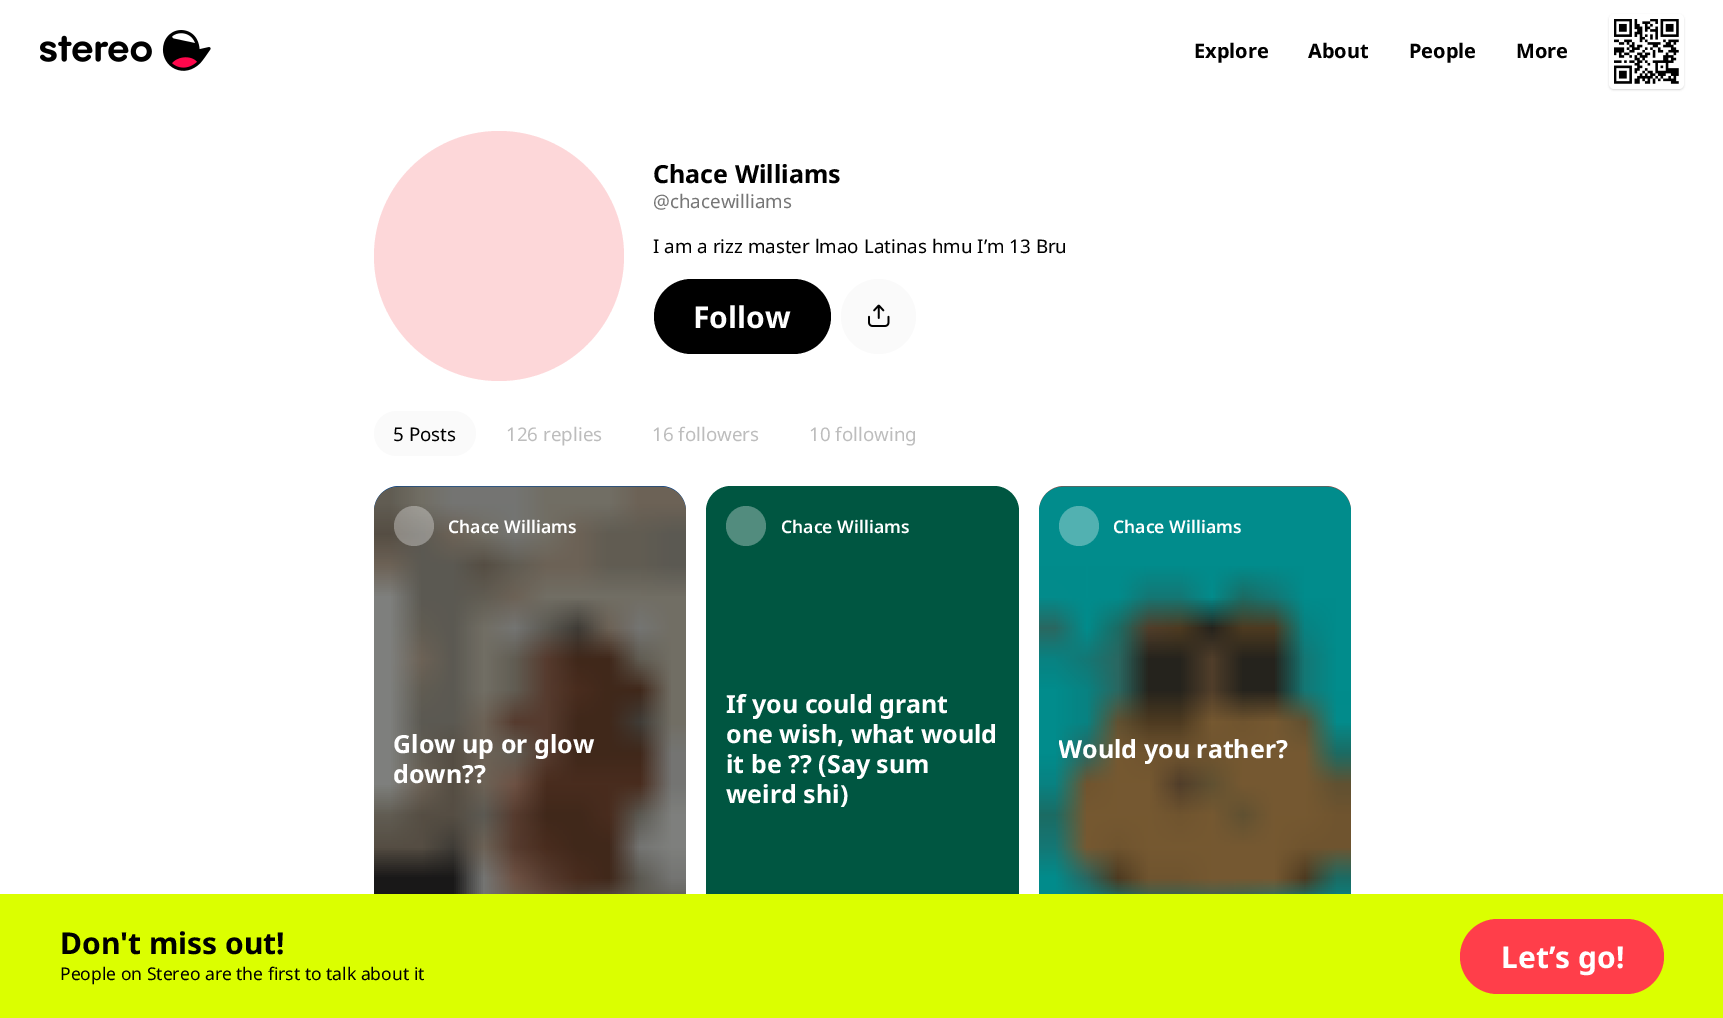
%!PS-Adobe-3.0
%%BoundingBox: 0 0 1723 1018
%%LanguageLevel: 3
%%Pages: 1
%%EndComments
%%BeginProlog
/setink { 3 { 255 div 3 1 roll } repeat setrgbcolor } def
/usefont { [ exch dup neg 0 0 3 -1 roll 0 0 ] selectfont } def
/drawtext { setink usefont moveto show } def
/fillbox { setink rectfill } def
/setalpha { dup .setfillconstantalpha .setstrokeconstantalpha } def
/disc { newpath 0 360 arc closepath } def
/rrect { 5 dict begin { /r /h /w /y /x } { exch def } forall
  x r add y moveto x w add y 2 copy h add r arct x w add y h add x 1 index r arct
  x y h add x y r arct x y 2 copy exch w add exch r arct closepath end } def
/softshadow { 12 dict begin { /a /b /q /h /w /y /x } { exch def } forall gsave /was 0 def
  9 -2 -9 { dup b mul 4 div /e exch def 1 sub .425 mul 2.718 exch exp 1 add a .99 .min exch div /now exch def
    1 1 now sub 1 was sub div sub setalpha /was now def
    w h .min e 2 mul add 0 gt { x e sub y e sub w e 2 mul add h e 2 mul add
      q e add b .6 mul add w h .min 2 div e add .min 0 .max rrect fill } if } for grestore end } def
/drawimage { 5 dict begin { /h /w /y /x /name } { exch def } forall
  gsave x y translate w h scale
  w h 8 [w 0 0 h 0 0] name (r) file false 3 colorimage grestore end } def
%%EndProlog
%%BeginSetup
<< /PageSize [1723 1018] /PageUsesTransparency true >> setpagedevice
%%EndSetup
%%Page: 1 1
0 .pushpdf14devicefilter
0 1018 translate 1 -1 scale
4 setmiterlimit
0 0 1723 1018 255 255 255 fillbox
(assets/img1.rgb) 40 30 171 41 drawimage
(Explore) 1194 58 /NotoSans-Bold 20 0 0 0 drawtext
(About) 1308 58 /NotoSans-Bold 20 0 0 0 drawtext
(People) 1409 58 /NotoSans-Bold 20 0 0 0 drawtext
(More) 1516 58 /NotoSans-Bold 20 0 0 0 drawtext
1609 15 75 75 5 1 0.16 softshadow
255 255 255 setink
1609 14 75 75 5 rrect fill
(assets/img2.rgb) 1614 19 65 65 drawimage
253 215 217 setink
499 256 125 disc fill
(Chace Williams) 653 183 /NotoSans-Bold 25 0 0 0 drawtext
(@chacewilliams) 653 208 /NotoSans-Regular 18.75 118 118 118 drawtext
(I am a rizz master lmao Latinas hmu I’m 13 Bru) 653 253 /NotoSans-Regular 18.75 0 0 0 drawtext
654 279 177 75 37.5 rrect fill
(Follow) 693 328 /NotoSans-Bold 30 255 255 255 drawtext
250 250 250 setink
878.5 316.5 37.5 disc fill
(assets/img3.rgb) 868 304 22 23 drawimage
374 411 102 45 22.5 rrect fill
(5 Posts) 393 441 /NotoSans-Regular 18.75 0 0 0 drawtext
(126 replies) 506 441 /NotoSans-Regular 18.75 189 189 189 drawtext
(16 followers) 652 441 /NotoSans-Regular 18.75 189 189 189 drawtext
(10 following) 809 441 /NotoSans-Regular 18.75 189 189 189 drawtext
0 117 255 setink
374 486 312 500 25 rrect fill
(assets/img4.rgb) 374 486 312 408 drawimage
0.45 setalpha
0 0 0 setink
374 486 312 500 25 rrect fill
0.32 setalpha
255 255 255 setink
414 526 20 disc fill
1 setalpha
(Chace Williams) 448 533 /NotoSans-SemiBold 17.5 255 255 255 drawtext
(Glow up or glow) 393 753 /NotoSans-Bold 25 255 255 255 drawtext
(down??) 393 783 /NotoSans-Bold 25 255 255 255 drawtext
0 86 65 setink
706 486 313 500 25 rrect fill
82 140 126 setink
746 526 20 disc fill
(Chace Williams) 781 533 /NotoSans-SemiBold 17.5 255 255 255 drawtext
(If you could grant) 726 713 /NotoSans-Bold 25 255 255 255 drawtext
(one wish, what would) 726 743 /NotoSans-Bold 25 255 255 255 drawtext
(it be ?? \(Say sum) 726 773 /NotoSans-Bold 25 255 255 255 drawtext
(weird shi\)) 726 803 /NotoSans-Bold 25 255 255 255 drawtext
255 143 136 setink
1039 486 312 500 25 rrect fill
(assets/img5.rgb) 1039 486 312 408 drawimage
0.45 setalpha
0 0 0 setink
1039 486 312 500 25 rrect fill
1 setalpha
82 177 177 setink
1079 526 20 disc fill
(Chace Williams) 1113 533 /NotoSans-SemiBold 17.5 255 255 255 drawtext
gsave
1059 734 272 30 rectclip
(Would you rather?) 1058 758 /NotoSans-Bold 25 255 255 255 drawtext
grestore
0 894 1723 124 219 255 0 fillbox
(Don't miss out!) 60 954 /NotoSans-Bold 30 0 0 0 drawtext
(People on Stereo are the first to talk about it) 60 980 /NotoSans-Regular 17.5 0 0 0 drawtext
255 62 74 setink
1460 919 204 75 37.5 rrect fill
(Let’s go!) 1501 968 /NotoSans-Bold 30 255 255 255 drawtext
.poppdf14devicefilter showpage
%%EOF
